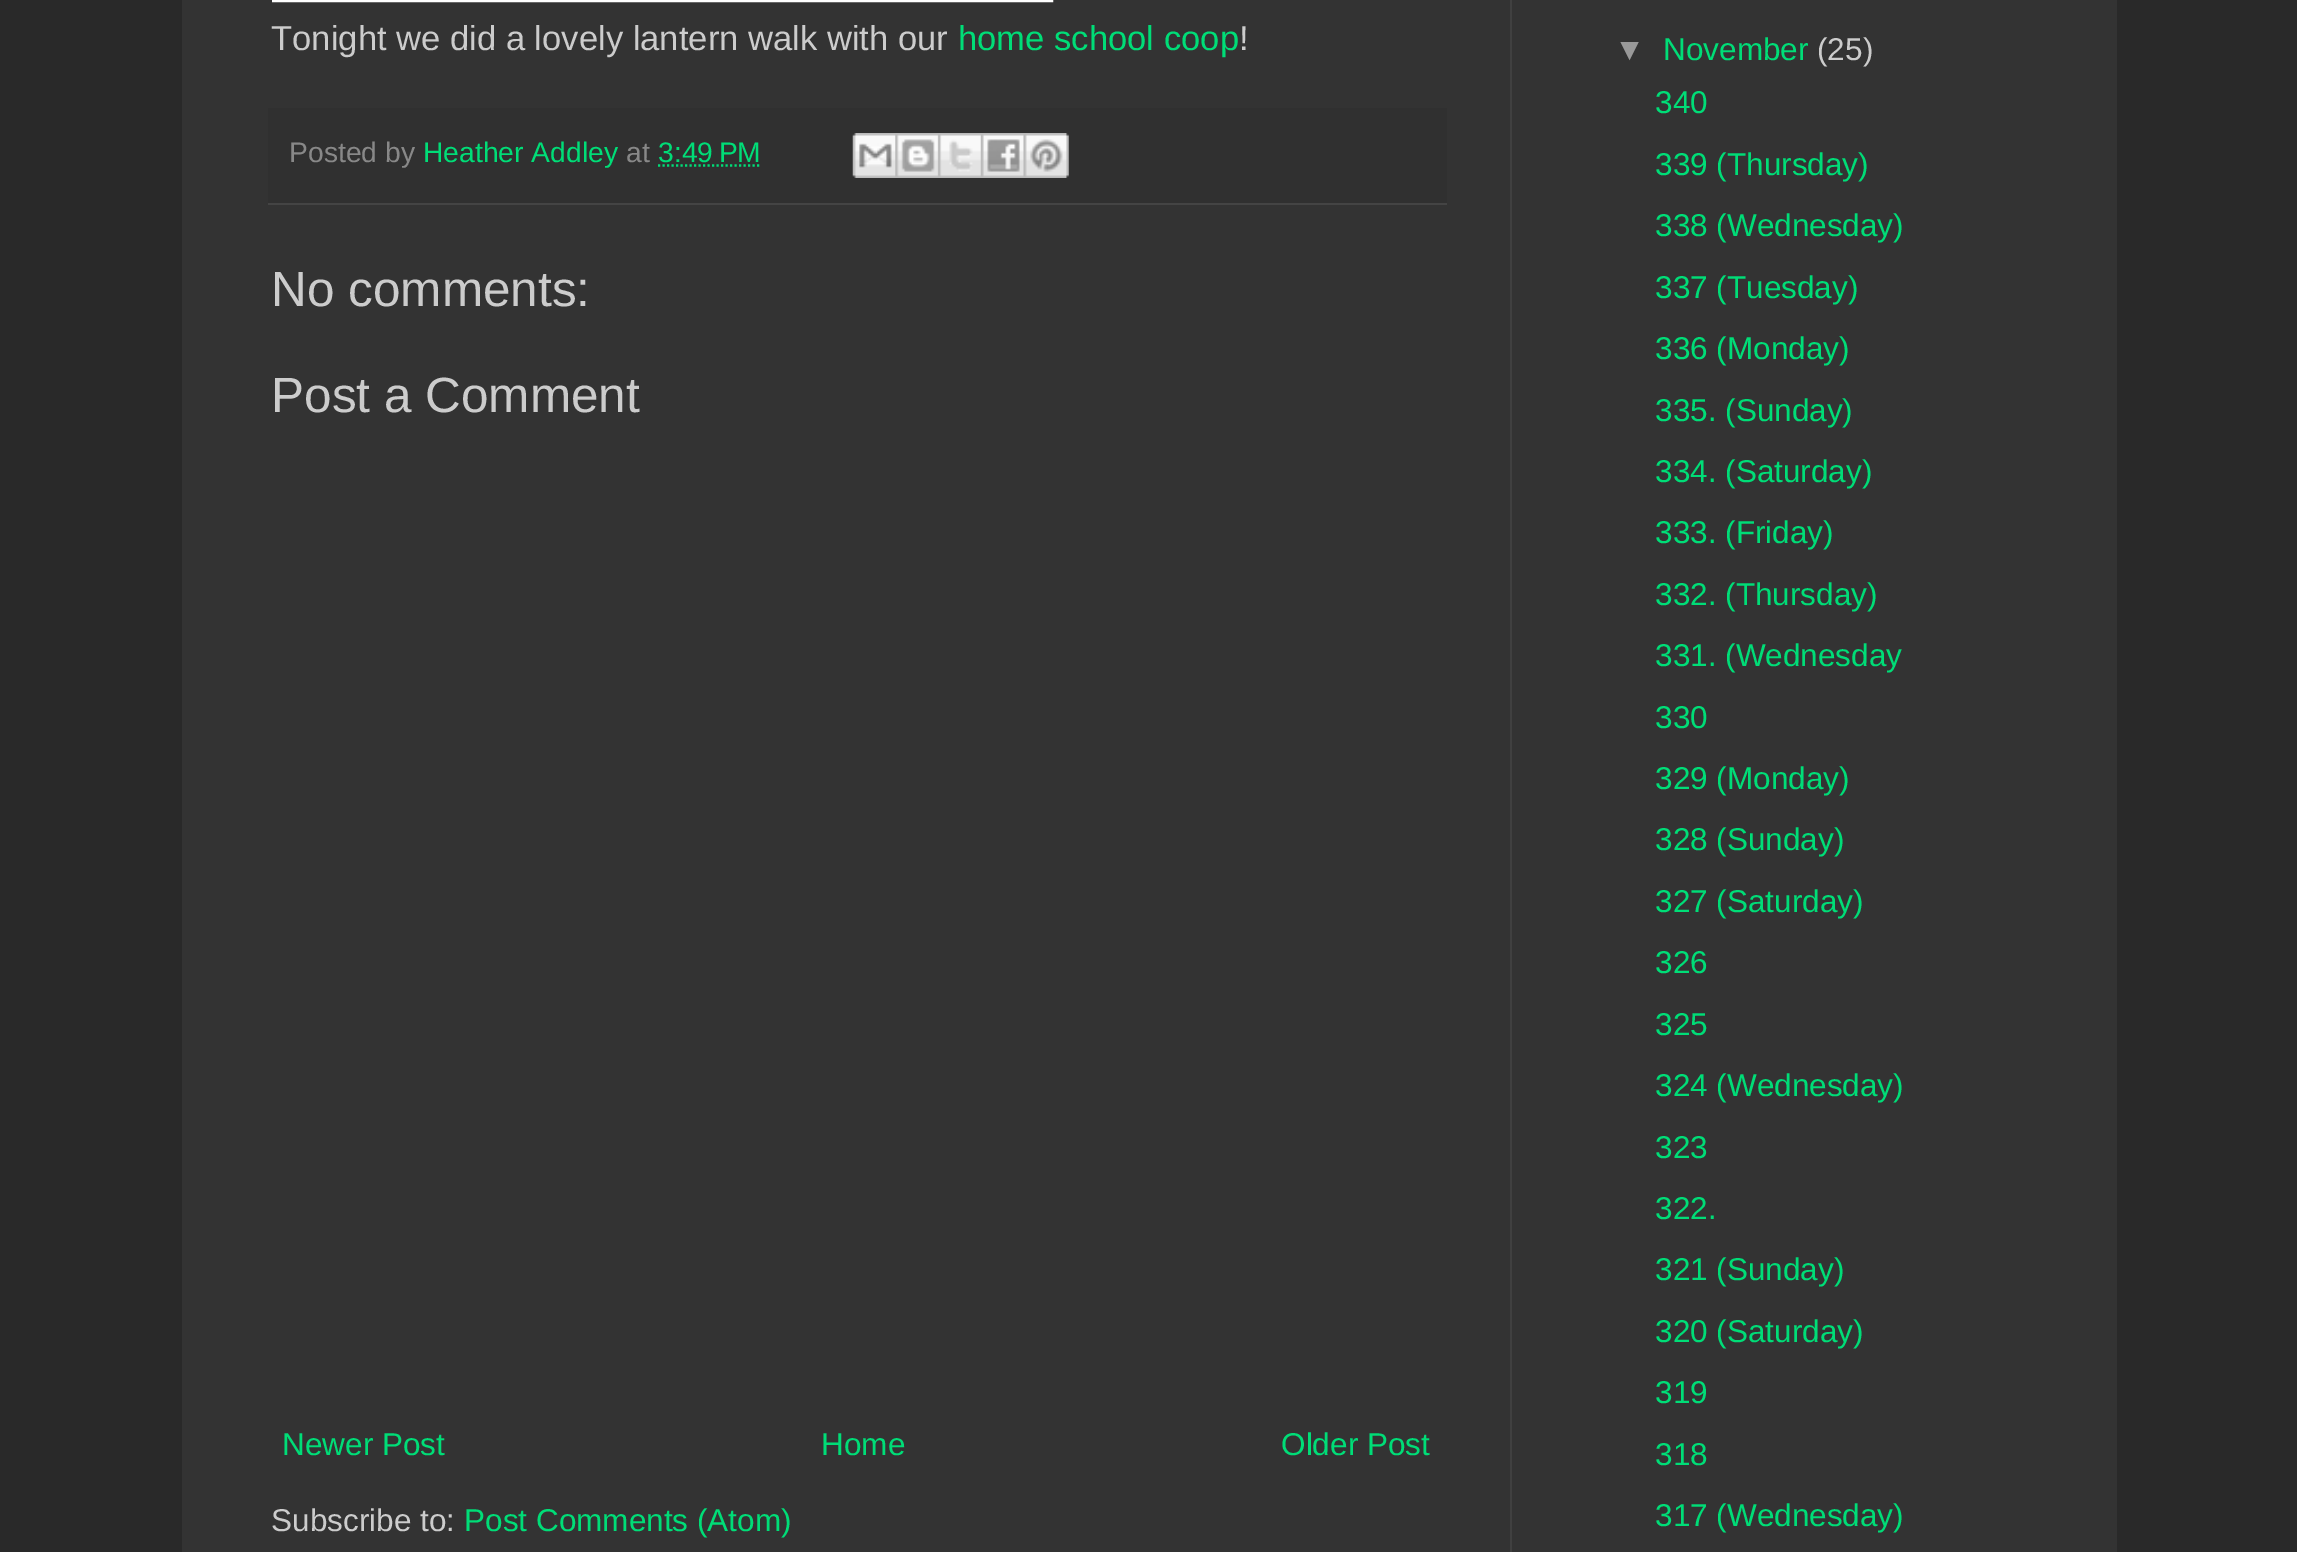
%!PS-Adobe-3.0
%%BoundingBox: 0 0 2297 1552
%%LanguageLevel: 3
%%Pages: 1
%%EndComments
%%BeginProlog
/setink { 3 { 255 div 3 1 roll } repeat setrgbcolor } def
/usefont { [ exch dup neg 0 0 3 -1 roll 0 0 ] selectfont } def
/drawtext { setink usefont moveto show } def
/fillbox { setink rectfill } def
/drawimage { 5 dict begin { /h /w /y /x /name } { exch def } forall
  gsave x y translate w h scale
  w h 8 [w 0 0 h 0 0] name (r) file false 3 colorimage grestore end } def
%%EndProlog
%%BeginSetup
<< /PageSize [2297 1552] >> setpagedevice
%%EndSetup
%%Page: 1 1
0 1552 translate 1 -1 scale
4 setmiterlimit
0 0 2297 1552 41 41 41 fillbox
182 0 1935 1552 51 51 51 fillbox
1510 0 2 1552 64 64 64 fillbox
255 255 255 setink
2 setlinewidth
273 -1 779 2 rectstroke
(Tonight we did a lovely lantern walk with our) 271 50 /LiberationSans-Regular 34.6 204 204 204 drawtext
(home school coop) 958 50 /LiberationSans-Regular 34.6 0 221 119 drawtext
(!) 1239 50 /LiberationSans-Regular 34.6 204 204 204 drawtext
268 108 1179 95 48 48 48 fillbox
268 203 1179 2 68 68 68 fillbox
(Posted by) 289 162 /LiberationSans-Regular 28.25 136 136 136 drawtext
(Heather Addley) 423 162 /LiberationSans-Regular 28.25 0 221 119 drawtext
(at) 626 162 /LiberationSans-Regular 28.25 136 136 136 drawtext
(3:49 PM) 658 162 /LiberationSans-Regular 28.25 0 221 119 drawtext
2.2 setlinewidth
[2.25 2.25] 0 setdash
658 165.5 moveto 761 165.5 lineto stroke
(assets/img1.rgb) 852 133 44 45 drawimage
(assets/img2.rgb) 895 133 44 45 drawimage
(assets/img3.rgb) 938 133 43 45 drawimage
(assets/img4.rgb) 981 133 43 45 drawimage
(assets/img5.rgb) 1023 133 46 45 drawimage
(No comments:) 271 306 /LiberationSans-Regular 49.5 204 204 204 drawtext
(Post a Comment) 271 412 /LiberationSans-Regular 49.5 204 204 204 drawtext
(Newer Post) 282 1455 /LiberationSans-Regular 31.5 0 221 119 drawtext
(Home) 821 1455 /LiberationSans-Regular 31.5 0 221 119 drawtext
(Older Post) 1281 1455 /LiberationSans-Regular 31.5 0 221 119 drawtext
(Subscribe to:) 271 1531 /LiberationSans-Regular 31.5 204 204 204 drawtext
(Post Comments \(Atom\)) 464 1531 /LiberationSans-Regular 31.5 0 221 119 drawtext
(▼) 1614 60 /LiberationSans-Regular 31.5 153 153 153 drawtext
(November) 1663 60 /LiberationSans-Regular 31.5 0 221 119 drawtext
(\(25\)) 1817 60 /LiberationSans-Regular 31.5 204 204 204 drawtext
(340) 1655 113 /LiberationSans-Regular 31.5 0 221 119 drawtext
(339 \(Thursday\)) 1655 175 /LiberationSans-Regular 31.5 0 221 119 drawtext
(338 \(Wednesday\)) 1655 236 /LiberationSans-Regular 31.5 0 221 119 drawtext
(337 \(Tuesday\)) 1655 298 /LiberationSans-Regular 31.5 0 221 119 drawtext
(336 \(Monday\)) 1655 359 /LiberationSans-Regular 31.5 0 221 119 drawtext
(335. \(Sunday\)) 1655 421 /LiberationSans-Regular 31.5 0 221 119 drawtext
(334. \(Saturday\)) 1655 482 /LiberationSans-Regular 31.5 0 221 119 drawtext
(333. \(Friday\)) 1655 543 /LiberationSans-Regular 31.5 0 221 119 drawtext
(332. \(Thursday\)) 1655 605 /LiberationSans-Regular 31.5 0 221 119 drawtext
(331. \(Wednesday) 1655 666 /LiberationSans-Regular 31.5 0 221 119 drawtext
(330) 1655 728 /LiberationSans-Regular 31.5 0 221 119 drawtext
(329 \(Monday\)) 1655 789 /LiberationSans-Regular 31.5 0 221 119 drawtext
(328 \(Sunday\)) 1655 850 /LiberationSans-Regular 31.5 0 221 119 drawtext
(327 \(Saturday\)) 1655 912 /LiberationSans-Regular 31.5 0 221 119 drawtext
(326) 1655 973 /LiberationSans-Regular 31.5 0 221 119 drawtext
(325) 1655 1035 /LiberationSans-Regular 31.5 0 221 119 drawtext
(324 \(Wednesday\)) 1655 1096 /LiberationSans-Regular 31.5 0 221 119 drawtext
(323) 1655 1158 /LiberationSans-Regular 31.5 0 221 119 drawtext
(322.) 1655 1219 /LiberationSans-Regular 31.5 0 221 119 drawtext
(321 \(Sunday\)) 1655 1280 /LiberationSans-Regular 31.5 0 221 119 drawtext
(320 \(Saturday\)) 1655 1342 /LiberationSans-Regular 31.5 0 221 119 drawtext
(319) 1655 1403 /LiberationSans-Regular 31.5 0 221 119 drawtext
(318) 1655 1465 /LiberationSans-Regular 31.5 0 221 119 drawtext
(317 \(Wednesday\)) 1655 1526 /LiberationSans-Regular 31.5 0 221 119 drawtext
showpage
%%EOF
